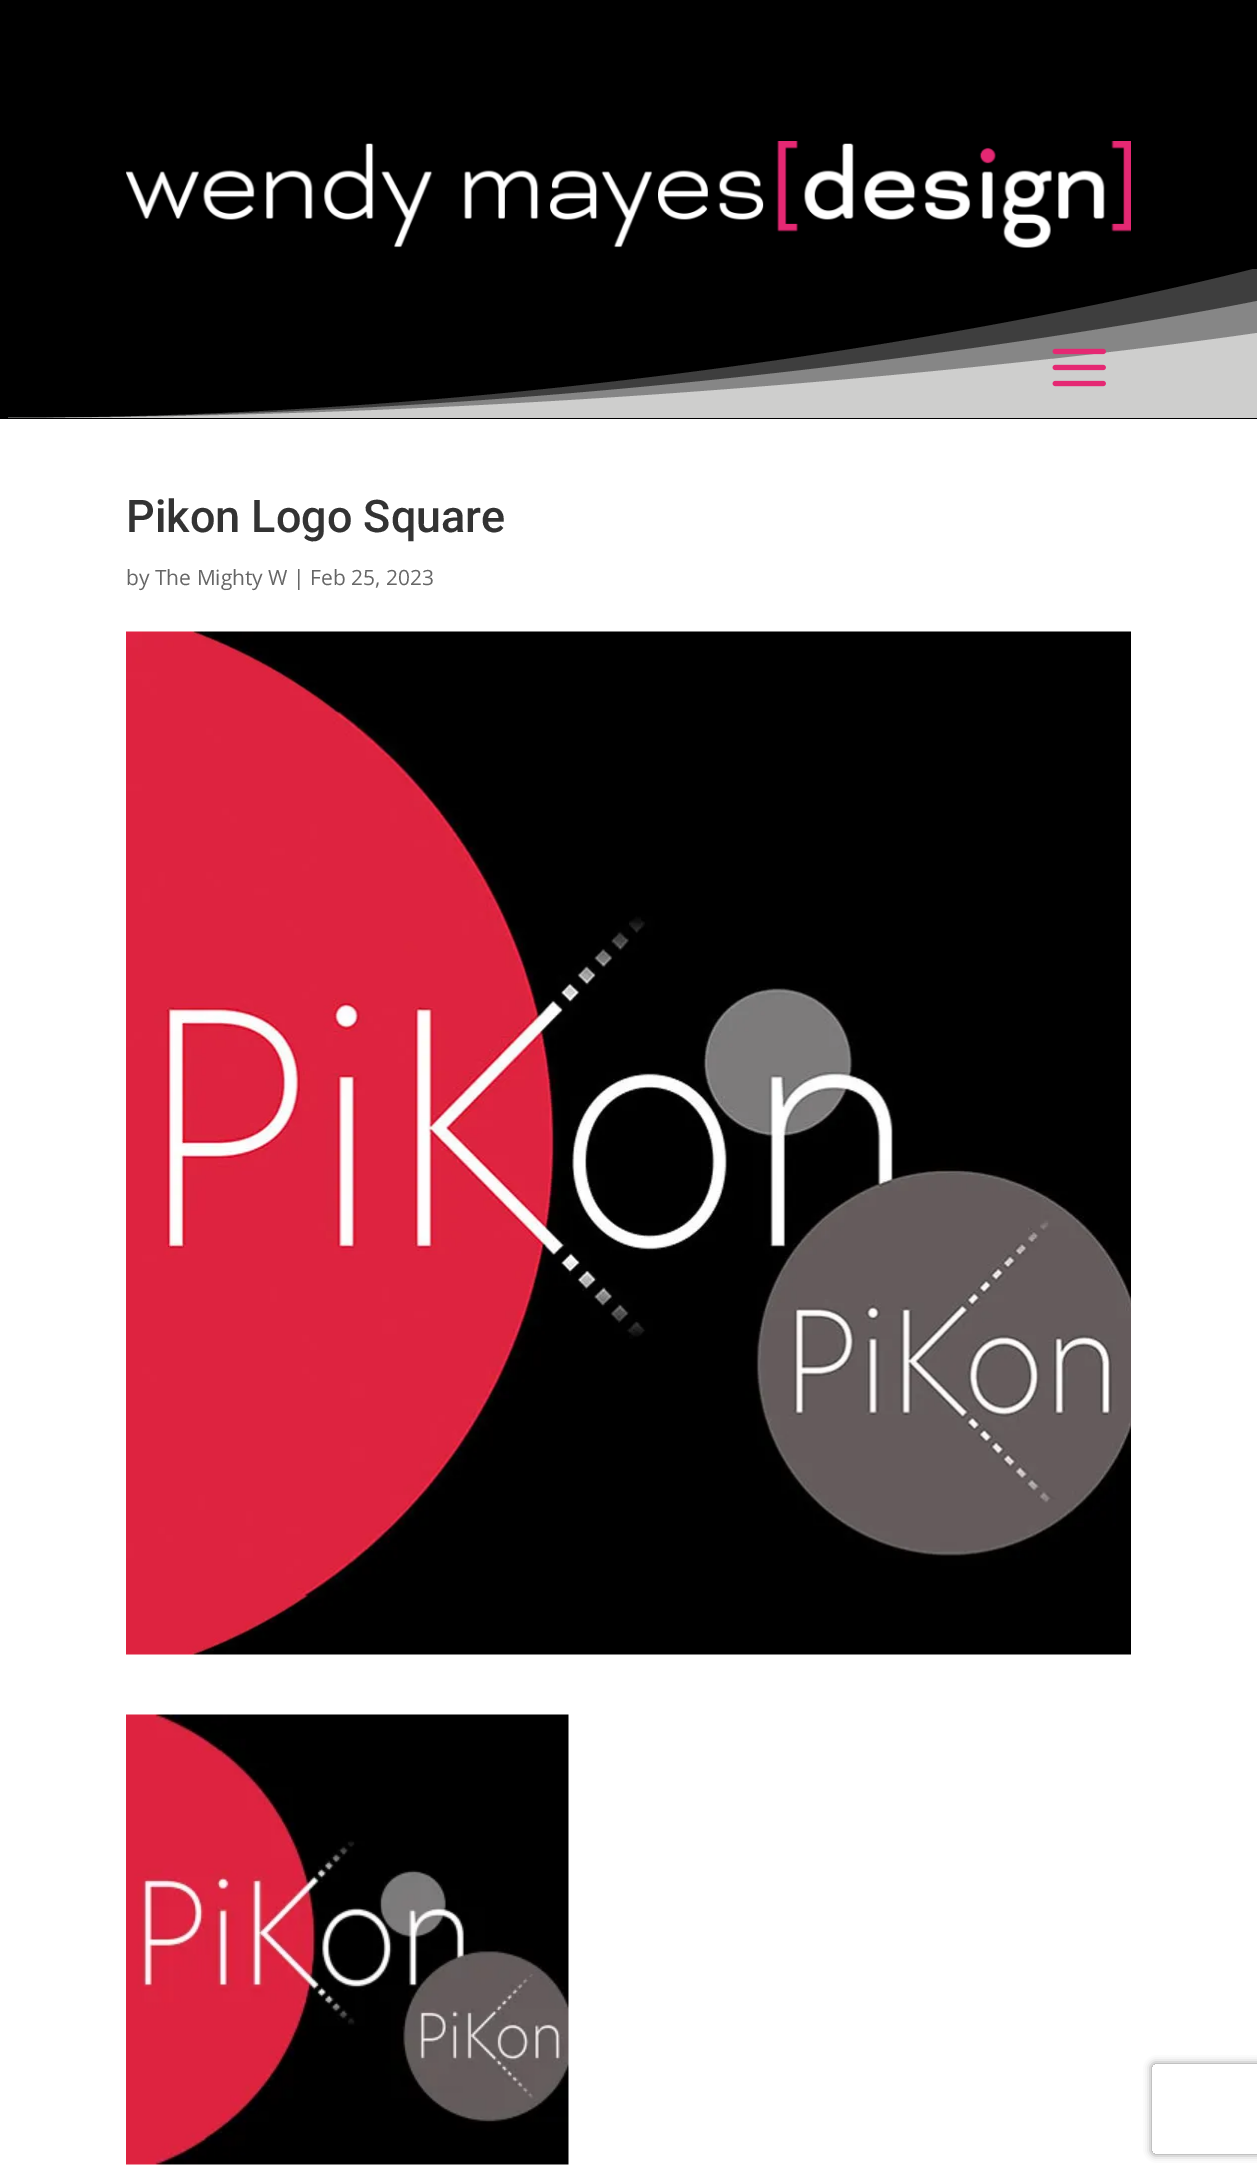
%!PS-Adobe-3.0
%%BoundingBox: 0 0 1257 2175
%%LanguageLevel: 3
%%Pages: 1
%%EndComments
%%BeginProlog
/setink { 3 { 255 div 3 1 roll } repeat setrgbcolor } def
/usefont { [ exch dup neg 0 0 3 -1 roll 0 0 ] selectfont } def
/drawtext { setink usefont moveto show } def
/fillbox { setink rectfill } def
/setalpha { dup .setfillconstantalpha .setstrokeconstantalpha } def
/rrect { 5 dict begin { /r /h /w /y /x } { exch def } forall
  x r add y moveto x w add y 2 copy h add r arct x w add y h add x 1 index r arct
  x y h add x y r arct x y 2 copy exch w add exch r arct closepath end } def
/softshadow { 12 dict begin { /a /b /q /h /w /y /x } { exch def } forall gsave /was 0 def
  9 -2 -9 { dup b mul 4 div /e exch def 1 sub .425 mul 2.718 exch exp 1 add a .99 .min exch div /now exch def
    1 1 now sub 1 was sub div sub setalpha /was now def
    w h .min e 2 mul add 0 gt { x e sub y e sub w e 2 mul add h e 2 mul add
      q e add b .6 mul add w h .min 2 div e add .min 0 .max rrect fill } if } for grestore end } def
/drawimage { 5 dict begin { /h /w /y /x /name } { exch def } forall
  gsave x y translate w h scale
  w h 8 [w 0 0 h 0 0] name (r) file false 3 colorimage grestore end } def
%%EndProlog
%%BeginSetup
<< /PageSize [1257 2175] /PageUsesTransparency true >> setpagedevice
%%EndSetup
%%Page: 1 1
0 .pushpdf14devicefilter
0 2175 translate 1 -1 scale
4 setmiterlimit
0 0 1257 2175 255 255 255 fillbox
0 0 1257 419 0 0 0 fillbox
(assets/img1.rgb) 126 141 1005 107 drawimage
gsave
0 269 1257 150 rectclip
62 62 62 setink
1257 418 moveto 0 418 lineto 694 418 1257 268 1257 268 curveto closepath fill
grestore
0.5 setalpha
206 206 205 setink
1257 418 moveto 0 418 lineto 694 418 1257 301 1257 301 curveto closepath fill
1 setalpha
1257 418 moveto 0 418 lineto 694 418 1257 333 1257 333 curveto closepath fill
(assets/img2.rgb) 1052 348 54 39 drawimage
(Pikon Logo Square) 126 532 /Roboto-Medium 45 51 51 51 drawtext
(by The Mighty W | Feb 25, 2023) 126 585 /OpenSans-Regular 21 102 102 102 drawtext
(assets/img3.rgb) 126 631 1005 1024 drawimage
(assets/img4.rgb) 126 1714 443 451 drawimage
gsave
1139 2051 moveto 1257 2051 lineto 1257 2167 lineto 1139 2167 lineto closepath 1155 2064 moveto 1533 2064 lineto 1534.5 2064 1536 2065.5 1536 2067 curveto 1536 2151 lineto 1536 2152.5 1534.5 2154 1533 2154 curveto 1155 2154 lineto 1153.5 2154 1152 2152.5 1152 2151 curveto 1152 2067 lineto 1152 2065.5 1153.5 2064 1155 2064 curveto closepath eoclip newpath
128 128 128 setink
1152 2064 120 90 3 4 1 softshadow
grestore
.poppdf14devicefilter showpage
%%EOF
